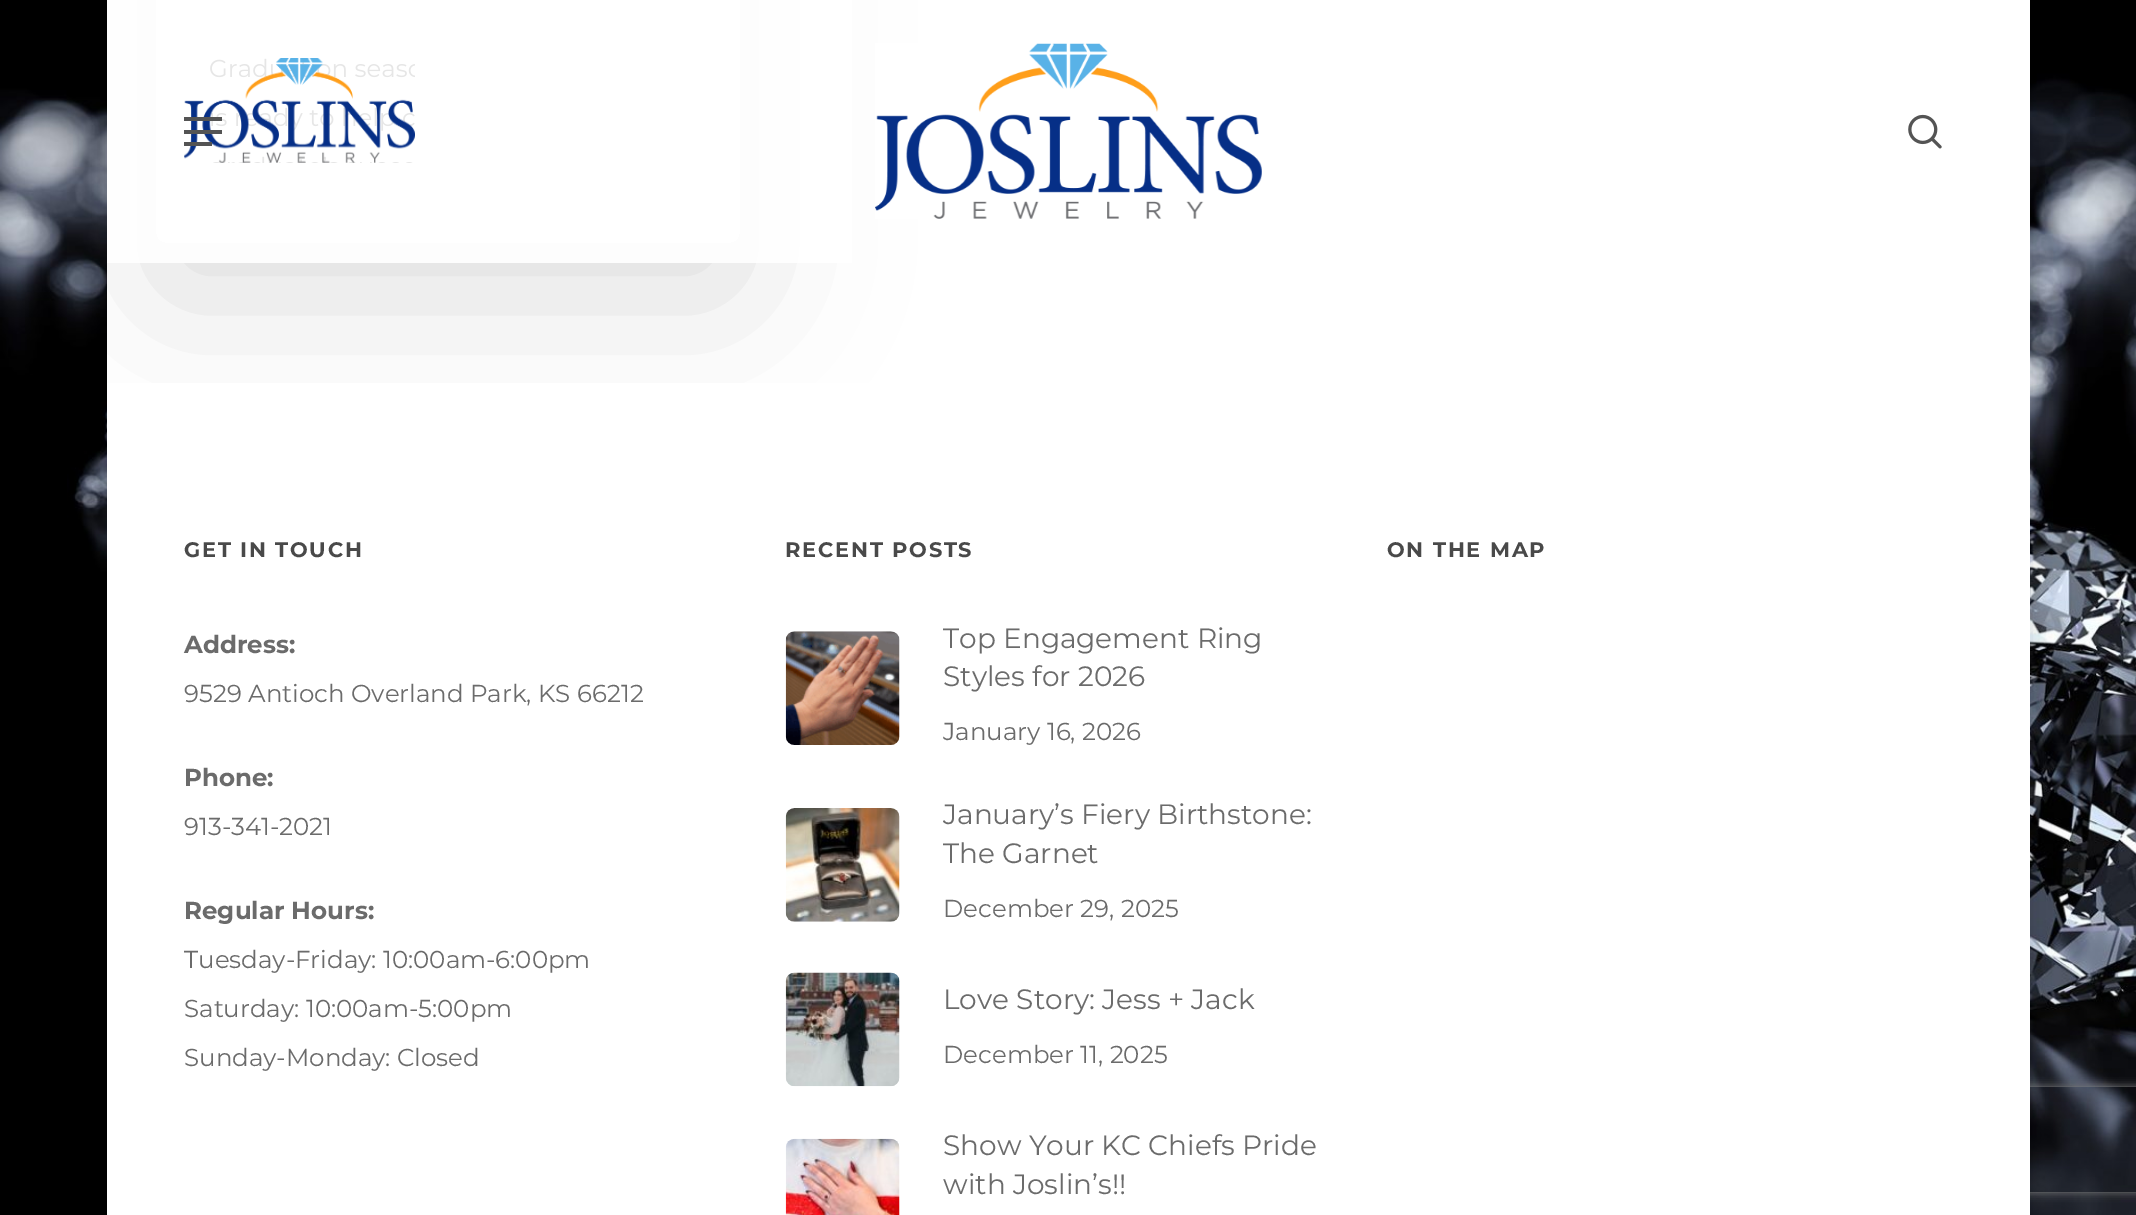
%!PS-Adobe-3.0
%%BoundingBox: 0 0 2136 1215
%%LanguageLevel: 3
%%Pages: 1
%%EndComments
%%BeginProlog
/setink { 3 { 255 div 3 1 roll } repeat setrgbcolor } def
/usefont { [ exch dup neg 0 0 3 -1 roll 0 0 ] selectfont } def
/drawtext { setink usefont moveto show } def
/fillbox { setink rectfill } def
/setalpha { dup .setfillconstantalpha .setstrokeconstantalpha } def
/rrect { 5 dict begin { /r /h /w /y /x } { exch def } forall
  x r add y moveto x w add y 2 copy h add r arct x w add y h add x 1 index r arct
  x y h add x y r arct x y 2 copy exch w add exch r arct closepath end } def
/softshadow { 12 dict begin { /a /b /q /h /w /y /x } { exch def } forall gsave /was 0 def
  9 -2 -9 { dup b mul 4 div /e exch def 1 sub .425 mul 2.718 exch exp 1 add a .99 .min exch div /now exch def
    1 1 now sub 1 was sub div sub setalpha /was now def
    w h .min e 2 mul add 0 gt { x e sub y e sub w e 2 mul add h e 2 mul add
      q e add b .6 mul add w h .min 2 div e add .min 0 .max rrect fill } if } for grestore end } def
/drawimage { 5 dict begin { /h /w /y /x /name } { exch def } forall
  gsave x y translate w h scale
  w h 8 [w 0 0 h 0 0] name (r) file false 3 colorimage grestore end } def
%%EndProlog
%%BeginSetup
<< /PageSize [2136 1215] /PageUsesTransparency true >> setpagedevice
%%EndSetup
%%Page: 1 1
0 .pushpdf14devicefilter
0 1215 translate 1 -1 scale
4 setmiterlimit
0 0 2136 1215 255 255 255 fillbox
(assets/img1.rgb) 0 0 2136 1215 drawimage
0 0 0 setink
107 -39 1923 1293 0 13 0.15 softshadow
107 0 1923 383 255 255 255 fillbox
gsave
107 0 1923 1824 rectclip
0 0 moveto 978 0 lineto 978 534 lineto 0 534 lineto closepath 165 -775 moveto 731 -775 lineto 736 -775 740 -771 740 -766 curveto 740 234 lineto 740 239 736 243 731 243 curveto 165 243 lineto 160 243 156 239 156 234 curveto 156 -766 lineto 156 -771 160 -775 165 -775 curveto closepath eoclip newpath
0 0 0 setink
156 -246 584 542 9 79 0.14 softshadow
grestore
0.9 setalpha
107 0 745 263 255 255 255 fillbox
1 setalpha
(assets/img2.rgb) 875 43 387 176 drawimage
(assets/img3.rgb) 184 58 231 105 drawimage
(assets/img4.rgb) 1908 114 34 35 drawimage
184 117 38 4 84 84 84 fillbox
184 142 28 4 84 84 84 fillbox
184 130 38 4 84 84 84 fillbox
gsave
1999 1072 moveto 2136 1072 lineto 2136 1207 lineto 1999 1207 lineto closepath 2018 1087 moveto 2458 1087 lineto 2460 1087 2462 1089 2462 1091 curveto 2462 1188 lineto 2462 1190 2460 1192 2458 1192 curveto 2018 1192 lineto 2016 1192 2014 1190 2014 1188 curveto 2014 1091 lineto 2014 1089 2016 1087 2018 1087 curveto closepath eoclip newpath
128 128 128 setink
2014 1087 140 105 4 4.5 1 softshadow
grestore
107 383 1923 832 255 255 255 fillbox
/Montserrat-Bold 21 usefont
73 73 73 setink
184 557 moveto 1.75 0 (GET IN TOUCH) ashow
(Address:) 184 653 /Montserrat-Bold 24.5 107 107 107 drawtext
(9529 Antioch Overland Park, KS 66212) 184 702 /Montserrat-Regular 24.5 107 107 107 drawtext
(Phone:) 184 786 /Montserrat-Bold 24.5 107 107 107 drawtext
(913-341-2021) 184 835 /Montserrat-Regular 24.5 107 107 107 drawtext
(Regular Hours:) 184 919 /Montserrat-Bold 24.5 107 107 107 drawtext
(Tuesday-Friday: 10:00am-6:00pm) 184 968 /Montserrat-Regular 24.5 107 107 107 drawtext
(Saturday: 10:00am-5:00pm) 184 1017 /Montserrat-Regular 24.5 107 107 107 drawtext
(Sunday-Monday: Closed) 184 1066 /Montserrat-Regular 24.5 107 107 107 drawtext
/Montserrat-Bold 21 usefont
73 73 73 setink
785 557 moveto 1.75 0 (RECENT POSTS) ashow
(assets/img5.rgb) 785 631 115 114 drawimage
(Top Engagement Ring) 943 648 /Montserrat-Regular 28 107 107 107 drawtext
(Styles for 2026) 943 686 /Montserrat-Regular 28 107 107 107 drawtext
(January 16, 2026) 943 740 /Montserrat-Regular 24.5 107 107 107 drawtext
(assets/img6.rgb) 785 808 115 114 drawimage
(January’s Fiery Birthstone:) 943 824 /Montserrat-Regular 28 107 107 107 drawtext
(The Garnet) 943 863 /Montserrat-Regular 28 107 107 107 drawtext
(December 29, 2025) 943 917 /Montserrat-Regular 24.5 107 107 107 drawtext
(assets/img7.rgb) 785 972 115 115 drawimage
(Love Story: Jess + Jack) 943 1009 /Montserrat-Regular 28 107 107 107 drawtext
(December 11, 2025) 943 1063 /Montserrat-Regular 24.5 107 107 107 drawtext
(assets/img8.rgb) 785 1138 115 77 drawimage
(Show Your KC Chiefs Pride) 943 1155 /Montserrat-Regular 28 107 107 107 drawtext
(with Joslin’s!!) 943 1194 /Montserrat-Regular 28 107 107 107 drawtext
/Montserrat-Bold 21 usefont
73 73 73 setink
1387 557 moveto 1.75 0 (ON THE MAP) ashow
.poppdf14devicefilter showpage
%%EOF
